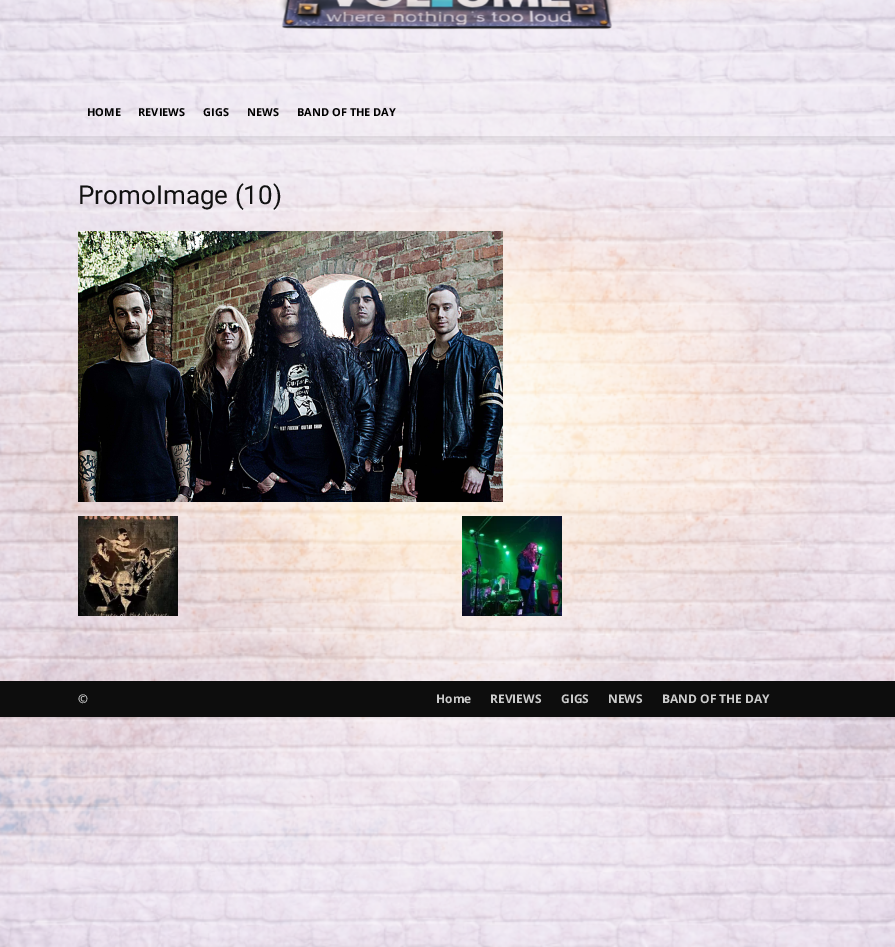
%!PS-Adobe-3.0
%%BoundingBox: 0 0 895 947
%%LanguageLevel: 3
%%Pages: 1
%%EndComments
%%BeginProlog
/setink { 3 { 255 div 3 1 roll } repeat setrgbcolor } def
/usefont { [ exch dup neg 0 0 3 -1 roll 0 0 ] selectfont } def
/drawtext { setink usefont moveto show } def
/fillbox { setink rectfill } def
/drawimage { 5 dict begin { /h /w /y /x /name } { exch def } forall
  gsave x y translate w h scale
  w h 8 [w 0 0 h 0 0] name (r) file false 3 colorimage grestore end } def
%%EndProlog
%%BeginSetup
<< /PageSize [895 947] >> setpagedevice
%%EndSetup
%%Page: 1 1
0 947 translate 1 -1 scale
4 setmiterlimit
0 0 895 947 255 255 255 fillbox
(assets/img1.rgb) 0 0 895 947 drawimage
(assets/img2.rgb) 148 0 677 30 drawimage
(HOME) 87 116 /OpenSans-Bold 11 0 0 0 drawtext
(REVIEWS) 138 116 /OpenSans-Bold 11 0 0 0 drawtext
(GIGS) 203 116 /OpenSans-Bold 11 0 0 0 drawtext
(NEWS) 247 116 /OpenSans-Bold 11 0 0 0 drawtext
(BAND OF THE DAY) 297 116 /OpenSans-Bold 11 0 0 0 drawtext
(assets/img3.rgb) 0 136 895 9 drawimage
(PromoImage \(10\)) 78 204 /Roboto-Regular 26 17 17 17 drawtext
(assets/img4.rgb) 78 231 425 271 drawimage
(assets/img5.rgb) 78 516 100 100 drawimage
(assets/img6.rgb) 462 516 100 100 drawimage
0 681 895 36 13 13 13 fillbox
(©) 78 703 /OpenSans-Bold 12 204 204 204 drawtext
(Home) 436 703 /OpenSans-Bold 12 204 204 204 drawtext
(REVIEWS) 490 703 /OpenSans-Bold 12 204 204 204 drawtext
(GIGS) 561 703 /OpenSans-Bold 12 204 204 204 drawtext
(NEWS) 608 703 /OpenSans-Bold 12 204 204 204 drawtext
(BAND OF THE DAY) 662 703 /OpenSans-Bold 12 204 204 204 drawtext
showpage
%%EOF
